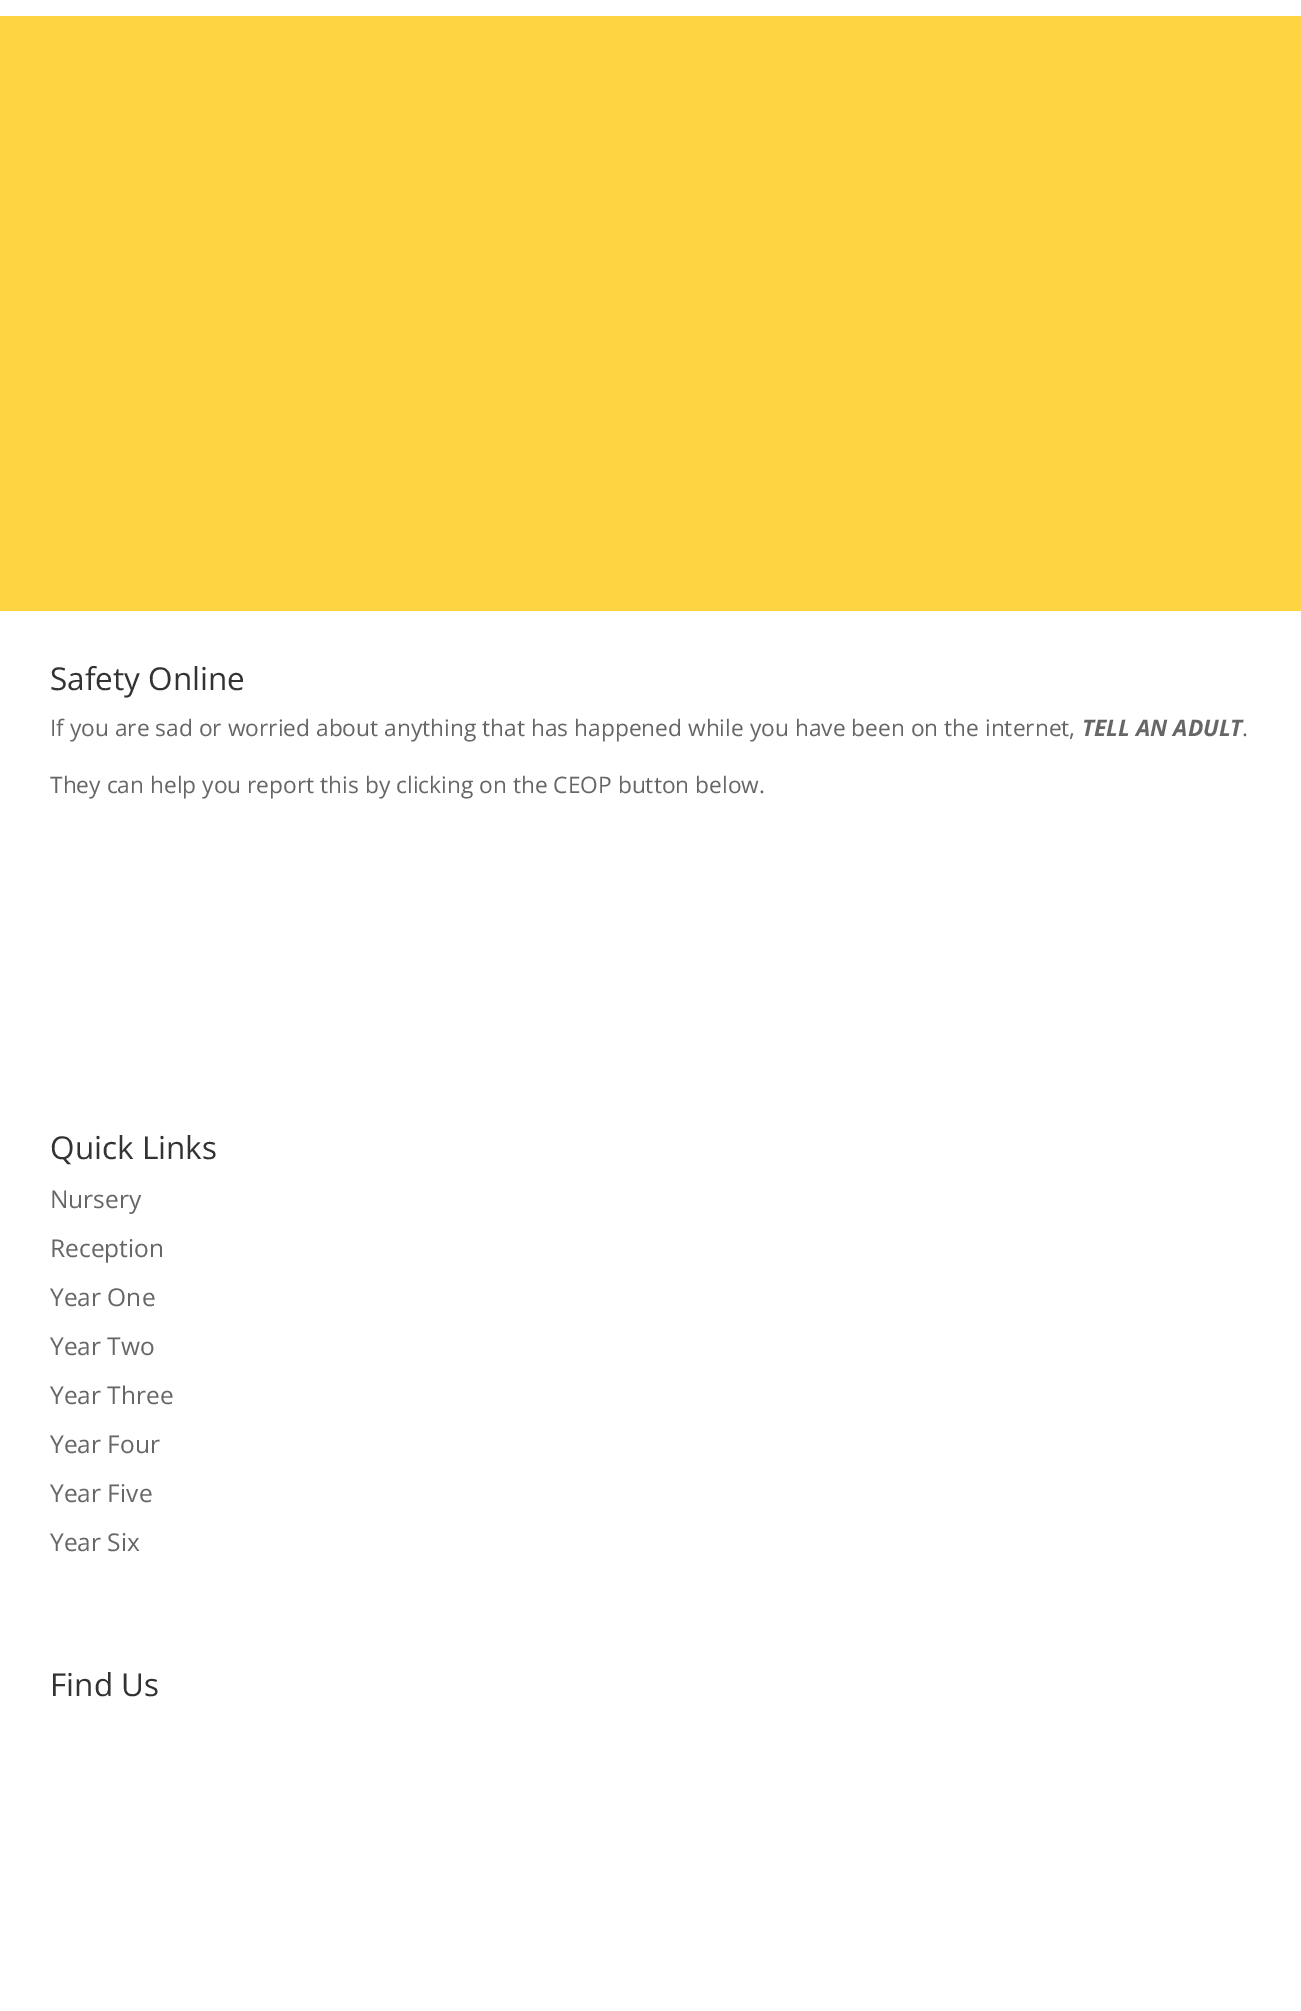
%!PS-Adobe-3.0
%%BoundingBox: 0 0 1301 2011
%%LanguageLevel: 3
%%Pages: 1
%%EndComments
%%BeginProlog
/setink { 3 { 255 div 3 1 roll } repeat setrgbcolor } def
/usefont { [ exch dup neg 0 0 3 -1 roll 0 0 ] selectfont } def
/drawtext { setink usefont moveto show } def
/fillbox { setink rectfill } def
%%EndProlog
%%BeginSetup
<< /PageSize [1301 2011] >> setpagedevice
%%EndSetup
%%Page: 1 1
0 2011 translate 1 -1 scale
4 setmiterlimit
0 0 1301 2011 255 255 255 fillbox
0 16 1301 595 254 212 67 fillbox
(Safety Online) 50 690 /OpenSans-Regular 31.5 51 51 51 drawtext
(If you are sad or worried about anything that has happened while you have been on the internet,) 50 736 /OpenSans-Regular 22.75 102 102 102 drawtext
(TELL AN ADULT) 1082 736 /OpenSans-BoldItalic 22.75 102 102 102 drawtext
(.) 1242 736 /OpenSans-Regular 22.75 102 102 102 drawtext
(They can help you report this by clicking on the CEOP button below.) 50 793 /OpenSans-Regular 22.75 102 102 102 drawtext
(Quick Links) 50 1159 /OpenSans-Regular 31.5 51 51 51 drawtext
(Nursery) 50 1208 /OpenSans-Regular 24.5 102 102 102 drawtext
(Reception) 50 1257 /OpenSans-Regular 24.5 102 102 102 drawtext
(Year One) 50 1306 /OpenSans-Regular 24.5 102 102 102 drawtext
(Year Two) 50 1355 /OpenSans-Regular 24.5 102 102 102 drawtext
(Year Three) 50 1404 /OpenSans-Regular 24.5 102 102 102 drawtext
(Year Four) 50 1453 /OpenSans-Regular 24.5 102 102 102 drawtext
(Year Five) 50 1502 /OpenSans-Regular 24.5 102 102 102 drawtext
(Year Six) 50 1551 /OpenSans-Regular 24.5 102 102 102 drawtext
(Find Us) 50 1696 /OpenSans-Regular 31.5 51 51 51 drawtext
showpage
%%EOF
